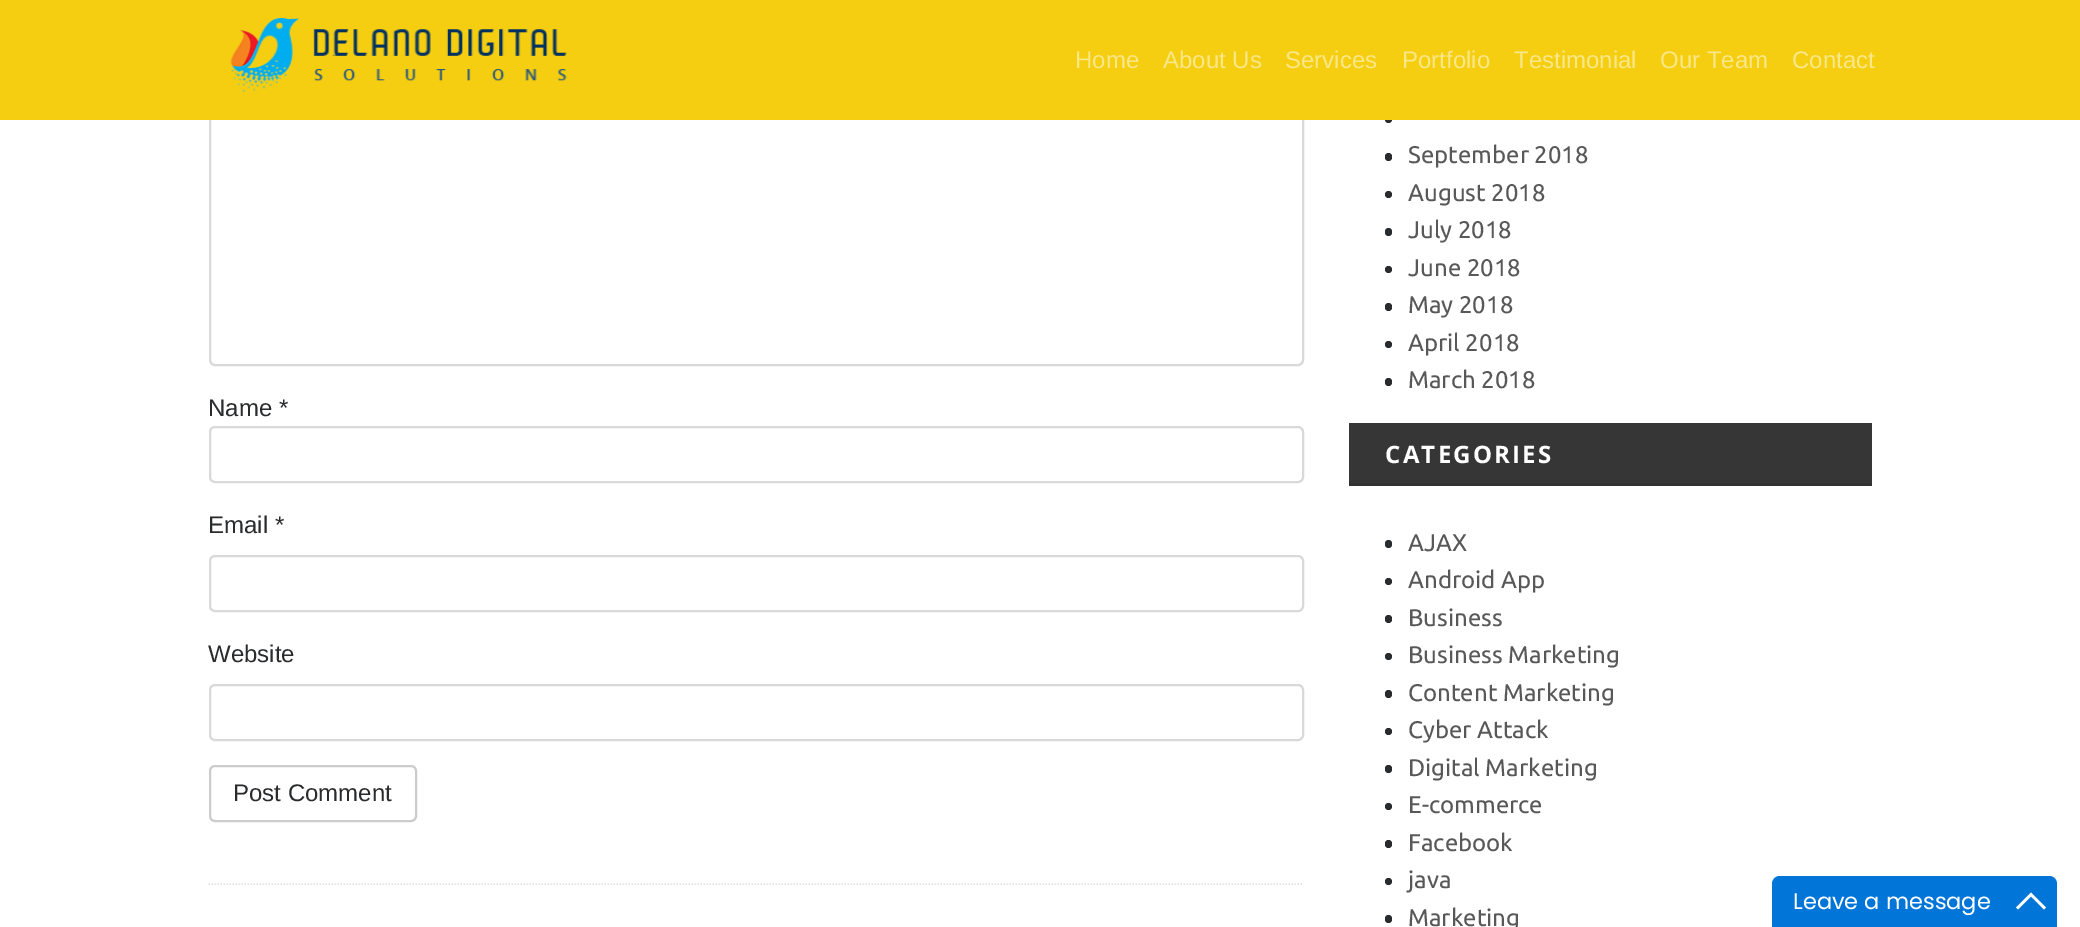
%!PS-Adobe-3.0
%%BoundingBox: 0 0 2080 927
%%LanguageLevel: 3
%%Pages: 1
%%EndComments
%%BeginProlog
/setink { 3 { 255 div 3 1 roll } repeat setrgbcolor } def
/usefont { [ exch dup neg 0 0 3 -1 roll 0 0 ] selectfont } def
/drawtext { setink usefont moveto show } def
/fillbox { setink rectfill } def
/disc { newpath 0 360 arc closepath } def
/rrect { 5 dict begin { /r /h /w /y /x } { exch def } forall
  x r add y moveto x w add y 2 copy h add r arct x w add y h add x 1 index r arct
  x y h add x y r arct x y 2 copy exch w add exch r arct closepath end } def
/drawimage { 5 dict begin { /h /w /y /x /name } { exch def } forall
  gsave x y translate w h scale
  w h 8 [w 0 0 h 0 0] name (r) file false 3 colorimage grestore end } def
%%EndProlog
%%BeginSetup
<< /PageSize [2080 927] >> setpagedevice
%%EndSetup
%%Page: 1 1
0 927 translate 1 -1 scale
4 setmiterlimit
0 0 2080 927 255 255 255 fillbox
217 217 217 setink
2 setlinewidth
210 100 1093 265 5 rrect stroke
41 43 44 setink
1388.5 119.5 3.5 disc fill
0 0 2080 120 245 206 17 fillbox
(assets/img1.rgb) 230 18 337 74 drawimage
(Home) 1075 68 /LiberationSans-Regular 24 250 231 136 drawtext
(About Us) 1163 68 /LiberationSans-Regular 24 250 231 136 drawtext
(Services) 1285 68 /LiberationSans-Regular 24 250 231 136 drawtext
(Portfolio) 1402 68 /LiberationSans-Regular 24 250 231 136 drawtext
(Testimonial) 1514 68 /LiberationSans-Regular 24 250 231 136 drawtext
(Our Team) 1660 68 /LiberationSans-Regular 24 250 231 136 drawtext
(Contact) 1792 68 /LiberationSans-Regular 24 250 231 136 drawtext
227 227 227 setink
1.5 setlinewidth
[1.5 1.5] 0 setdash
208.5 884 moveto 1303.5 884 lineto stroke
(Name *) 208 416 /LiberationSans-Regular 24 41 43 44 drawtext
217 217 217 setink
2 setlinewidth
[] 0 setdash
210 427 1093 55 5 rrect stroke
(Email *) 208 533 /LiberationSans-Regular 24 41 43 44 drawtext
217 217 217 setink
210 556 1093 55 5 rrect stroke
(Website) 208 662 /LiberationSans-Regular 24 41 43 44 drawtext
217 217 217 setink
210 685 1093 55 5 rrect stroke
204 204 204 setink
210 766 206 55 5 rrect stroke
(Post Comment) 233 801 /LiberationSans-Regular 24 41 43 44 drawtext
1385 153 7 8 3.5 rrect fill
(September 2018) 1408 163 /Ubuntu-Regular 24 88 88 88 drawtext
41 43 44 setink
1388.5 194.5 3.5 disc fill
(August 2018) 1408 201 /Ubuntu-Regular 24 88 88 88 drawtext
41 43 44 setink
1385 228 7 8 3.5 rrect fill
(July 2018) 1408 238 /Ubuntu-Regular 24 88 88 88 drawtext
41 43 44 setink
1388.5 269.5 3.5 disc fill
(June 2018) 1408 276 /Ubuntu-Regular 24 88 88 88 drawtext
41 43 44 setink
1385 303 7 8 3.5 rrect fill
(May 2018) 1408 313 /Ubuntu-Regular 24 88 88 88 drawtext
41 43 44 setink
1388.5 344.5 3.5 disc fill
(April 2018) 1408 351 /Ubuntu-Regular 24 88 88 88 drawtext
41 43 44 setink
1385 378 7 8 3.5 rrect fill
(March 2018) 1408 388 /Ubuntu-Regular 24 88 88 88 drawtext
1349 423 523 60 55 54 54 fillbox
/OpenSans-Bold 24 usefont
255 255 255 setink
1385 463 moveto 2.25 0 (CATEGORIES) ashow
1349 483 523 3 50 49 49 fillbox
41 43 44 setink
1385 540 7 8 3.5 rrect fill
(AJAX) 1408 551 /Ubuntu-Regular 24 88 88 88 drawtext
41 43 44 setink
1388.5 581.5 3.5 disc fill
(Android App) 1408 588 /Ubuntu-Regular 24 88 88 88 drawtext
41 43 44 setink
1385 615 7 8 3.5 rrect fill
(Business) 1408 626 /Ubuntu-Regular 24 88 88 88 drawtext
41 43 44 setink
1388.5 656.5 3.5 disc fill
(Business Marketing) 1408 663 /Ubuntu-Regular 24 88 88 88 drawtext
41 43 44 setink
1385 690 7 8 3.5 rrect fill
(Content Marketing) 1408 701 /Ubuntu-Regular 24 88 88 88 drawtext
41 43 44 setink
1388.5 731.5 3.5 disc fill
(Cyber Attack) 1408 738 /Ubuntu-Regular 24 88 88 88 drawtext
41 43 44 setink
1385 765 7 8 3.5 rrect fill
(Digital Marketing) 1408 776 /Ubuntu-Regular 24 88 88 88 drawtext
41 43 44 setink
1388.5 806.5 3.5 disc fill
(E-commerce) 1408 813 /Ubuntu-Regular 24 88 88 88 drawtext
41 43 44 setink
1385 840 7 8 3.5 rrect fill
(Facebook) 1408 851 /Ubuntu-Regular 24 88 88 88 drawtext
41 43 44 setink
1388.5 881.5 3.5 disc fill
(java) 1408 888 /Ubuntu-Regular 24 88 88 88 drawtext
41 43 44 setink
1385 915 7 8 3.5 rrect fill
(Marketing) 1408 926 /Ubuntu-Regular 24 88 88 88 drawtext
2 117 216 setink
1780 876 moveto 2049 876 lineto 2053.5 876 2057 879.5 2057 884 curveto 2057 927 lineto 1772 927 lineto 1772 884 lineto 1772 879.5 1775.5 876 1780 876 curveto closepath fill
(Leave a message) 1793 909 /Poppins-Regular 22.5 255 255 255 drawtext
2031 892.5 moveto 2046 907.5 lineto 2044 909.5 lineto 2031 896.5 lineto 2018 909.5 lineto 2016 907.5 lineto closepath fill
showpage
%%EOF
